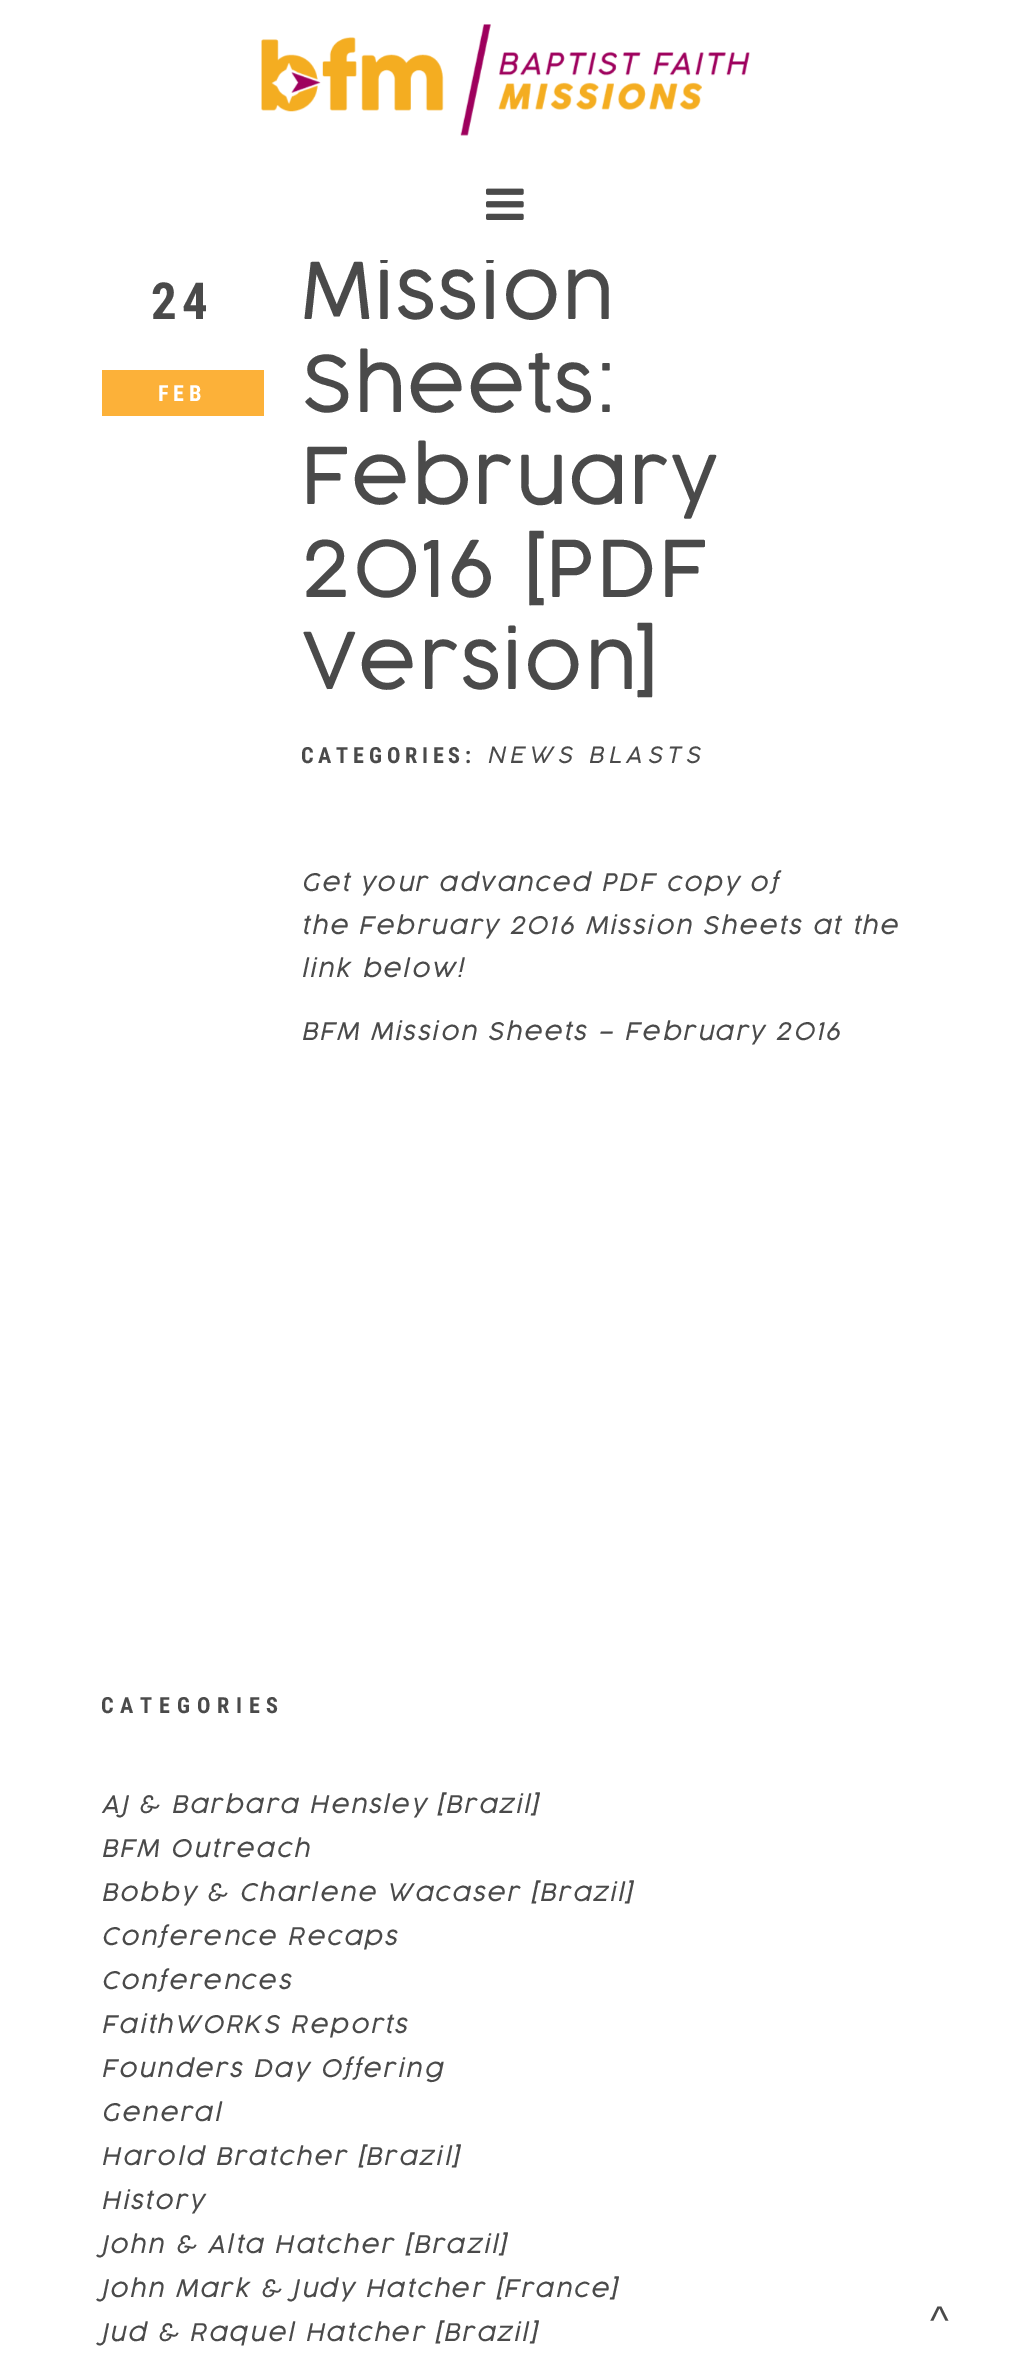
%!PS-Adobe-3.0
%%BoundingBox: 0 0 1012 2371
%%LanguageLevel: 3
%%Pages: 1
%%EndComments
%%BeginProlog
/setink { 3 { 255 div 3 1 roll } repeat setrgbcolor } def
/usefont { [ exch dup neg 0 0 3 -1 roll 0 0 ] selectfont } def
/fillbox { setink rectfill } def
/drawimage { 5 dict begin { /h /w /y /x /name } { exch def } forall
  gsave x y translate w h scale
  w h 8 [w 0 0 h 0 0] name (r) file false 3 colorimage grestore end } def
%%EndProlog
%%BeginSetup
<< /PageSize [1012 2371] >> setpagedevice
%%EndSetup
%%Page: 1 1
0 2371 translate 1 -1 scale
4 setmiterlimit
0 0 1012 2371 255 255 255 fillbox
/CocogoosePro-Light 77 usefont
74 74 74 setink
301 319 moveto 2 0 (Mission) ashow
380 255 115 5 255 255 255 fillbox
(assets/img1.rgb) 261 24 489 112 drawimage
(assets/img2.rgb) 486 188 38 32 drawimage
74 74 74 setink
301 412 moveto 2 0 (Sheets:) ashow
301 504 moveto 2 0 (February) ashow
301 597 moveto 2 0 (2016 [PDF) ashow
301 689 moveto 2 0 (Version]) ashow
/RobotoCondensed-Bold 51 usefont
151 319 moveto 4.75 0 (24) ashow
102 370 162 46 252 177 57 fillbox
/RobotoCondensed-Bold 22.25 usefont
255 255 255 setink
158 401 moveto 4.75 0 (FEB) ashow
74 74 74 setink
301 763 moveto 4.75 0 (CATEGORIES:) ashow
/CocogoosePro-LightItalic 22.25 usefont
487 763 moveto 4.75 0 (NEWS BLASTS) ashow
/CocogoosePro-LightItalic 24 usefont
301 891 moveto 2 0 (Get your advanced PDF copy of) ashow
301 934 moveto 2 0 (the February 2016 Mission Sheets at the) ashow
301 977 moveto 2 0 (link below!) ashow
301 1040 moveto 2 0 (BFM Mission Sheets – February 2016) ashow
/RobotoCondensed-Bold 22.25 usefont
101 1713 moveto 6.75 0 (CATEGORIES) ashow
/CocogoosePro-LightItalic 24 usefont
101 1813 moveto 2 0 (AJ & Barbara Hensley [Brazil]) ashow
101 1857 moveto 2 0 (BFM Outreach) ashow
101 1901 moveto 2 0 (Bobby & Charlene Wacaser [Brazil]) ashow
101 1945 moveto 2 0 (Conference Recaps) ashow
101 1989 moveto 2 0 (Conferences) ashow
101 2033 moveto 2 0 (FaithWORKS Reports) ashow
101 2077 moveto 2 0 (Founders Day Offering) ashow
101 2121 moveto 2 0 (General) ashow
101 2165 moveto 2 0 (Harold Bratcher [Brazil]) ashow
101 2209 moveto 2 0 (History) ashow
101 2253 moveto 2 0 (John & Alta Hatcher [Brazil]) ashow
101 2297 moveto 2 0 (John Mark & Judy Hatcher [France]) ashow
101 2341 moveto 2 0 (Jud & Raquel Hatcher [Brazil]) ashow
/LiberationSans-Regular 40 usefont
930 2334 moveto 2 0 (^) ashow
showpage
%%EOF
